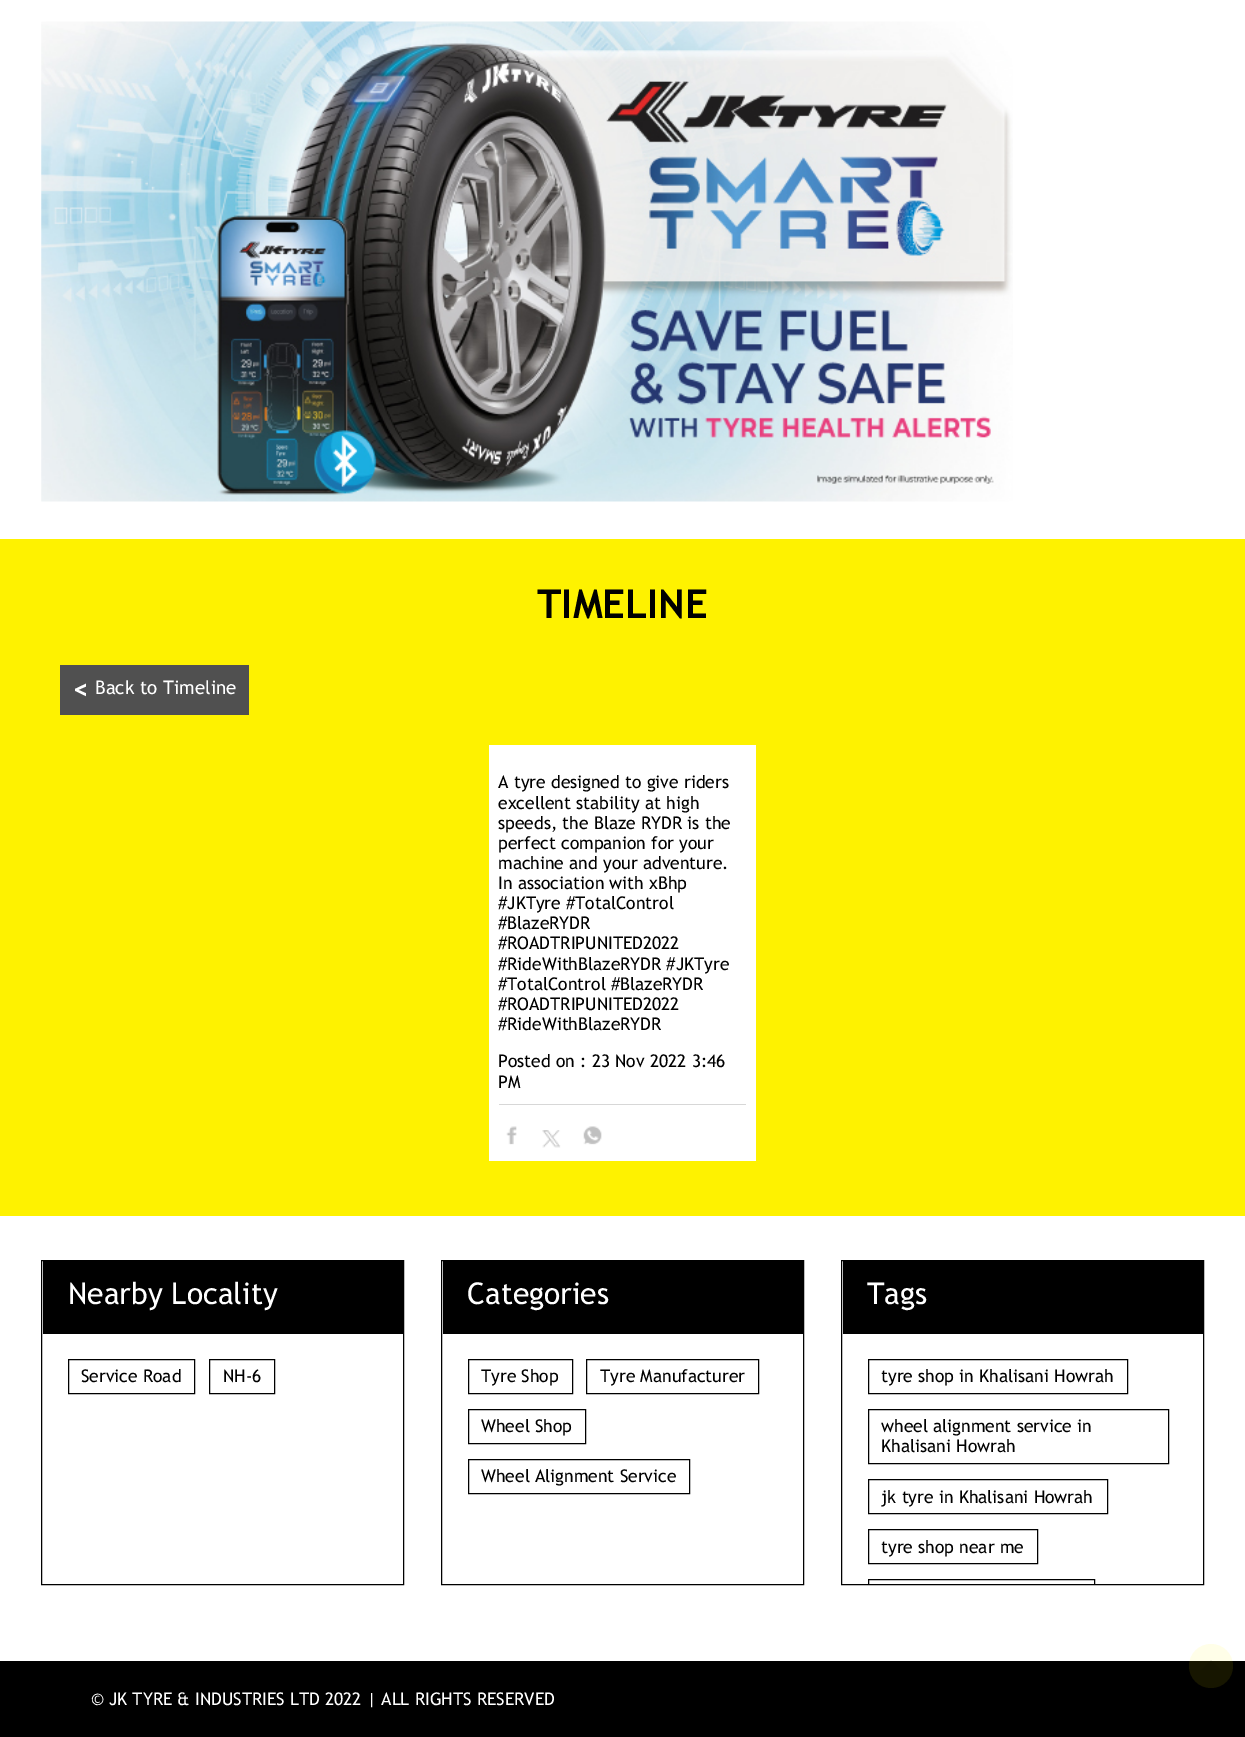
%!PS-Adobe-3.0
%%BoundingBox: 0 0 1245 1737
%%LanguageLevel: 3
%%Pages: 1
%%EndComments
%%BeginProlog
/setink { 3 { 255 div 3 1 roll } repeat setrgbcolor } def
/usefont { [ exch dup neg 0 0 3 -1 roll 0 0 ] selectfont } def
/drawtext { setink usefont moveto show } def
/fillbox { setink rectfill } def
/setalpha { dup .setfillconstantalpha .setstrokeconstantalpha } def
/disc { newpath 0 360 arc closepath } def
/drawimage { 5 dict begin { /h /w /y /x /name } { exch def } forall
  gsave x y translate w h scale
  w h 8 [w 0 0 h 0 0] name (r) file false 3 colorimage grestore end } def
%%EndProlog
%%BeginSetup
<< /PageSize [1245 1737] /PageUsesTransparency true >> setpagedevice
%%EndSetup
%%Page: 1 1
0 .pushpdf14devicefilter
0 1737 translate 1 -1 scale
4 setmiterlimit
0 0 1245 1737 255 255 255 fillbox
(assets/img1.rgb) 41 21 972 481 drawimage
0 539 1245 677 254 242 0 fillbox
(TIMELINE) 537 618 /TrebuchetMS-Bold 40 0 0 0 drawtext
60 665 189 50 80 80 80 fillbox
(<) 73 699 /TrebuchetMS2-Bold 28 255 255 255 drawtext
(Back to Timeline) 95 694 /TrebuchetMS-Regular 18.75 255 255 255 drawtext
489 745 267 416 255 255 255 fillbox
(A tyre designed to give riders) 498 788 /TrebuchetMS-Regular 17.5 0 0 0 drawtext
(excellent stability at high) 498 809 /TrebuchetMS-Regular 17.5 0 0 0 drawtext
(speeds, the Blaze RYDR is the) 498 829 /TrebuchetMS-Regular 17.5 0 0 0 drawtext
(perfect companion for your) 498 849 /TrebuchetMS-Regular 17.5 0 0 0 drawtext
(machine and your adventure.) 498 869 /TrebuchetMS-Regular 17.5 0 0 0 drawtext
(In association with xBhp) 498 889 /TrebuchetMS-Regular 17.5 0 0 0 drawtext
(#JKTyre #TotalControl) 498 909 /TrebuchetMS-Regular 17.5 0 0 0 drawtext
(#BlazeRYDR) 498 929 /TrebuchetMS-Regular 17.5 0 0 0 drawtext
(#ROADTRIPUNITED2022) 498 949 /TrebuchetMS-Regular 17.5 0 0 0 drawtext
(#RideWithBlazeRYDR #JKTyre) 498 970 /TrebuchetMS-Regular 17.5 0 0 0 drawtext
(#TotalControl #BlazeRYDR) 498 990 /TrebuchetMS-Regular 17.5 0 0 0 drawtext
(#ROADTRIPUNITED2022) 498 1010 /TrebuchetMS-Regular 17.5 0 0 0 drawtext
(#RideWithBlazeRYDR) 498 1030 /TrebuchetMS-Regular 17.5 0 0 0 drawtext
(Posted on : 23 Nov 2022 3:46) 498 1067 /TrebuchetMS-Regular 17.5 0 0 0 drawtext
(PM) 498 1088 /TrebuchetMS-Regular 17.5 0 0 0 drawtext
499 1104 247 1 215 215 215 fillbox
(assets/img2.rgb) 506 1126 11 19 drawimage
(assets/img3.rgb) 542 1130 19 18 drawimage
(assets/img4.rgb) 583 1126 19 19 drawimage
0 0 0 setink
41.5 1260.5 362 324 rectstroke
43 1261 360 73 0 0 0 fillbox
(Nearby Locality) 68 1304 /TrebuchetMS-Regular 30 255 255 255 drawtext
0 0 0 setink
68.5 1359.5 126 34 rectstroke
(Service Road) 81 1382 /TrebuchetMS-Regular 17.5 0 0 0 drawtext
209.5 1359.5 65 34 rectstroke
(NH-6) 223 1382 /TrebuchetMS-Regular 17.5 0 0 0 drawtext
441.5 1260.5 362 324 rectstroke
443 1261 360 73 0 0 0 fillbox
(Categories) 467 1304 /TrebuchetMS-Regular 30 255 255 255 drawtext
0 0 0 setink
468.5 1359.5 104 34 rectstroke
(Tyre Shop) 481 1382 /TrebuchetMS-Regular 17.5 0 0 0 drawtext
586.5 1359.5 172 34 rectstroke
(Tyre Manufacturer) 600 1382 /TrebuchetMS-Regular 17.5 0 0 0 drawtext
468.5 1409.5 117 34 rectstroke
(Wheel Shop) 481 1432 /TrebuchetMS-Regular 17.5 0 0 0 drawtext
468.5 1459.5 221 34 rectstroke
(Wheel Alignment Service) 481 1482 /TrebuchetMS-Regular 17.5 0 0 0 drawtext
841.5 1260.5 362 324 rectstroke
843 1261 360 73 0 0 0 fillbox
(Tags) 867 1304 /TrebuchetMS-Regular 30 255 255 255 drawtext
0 0 0 setink
868.5 1359.5 259 34 rectstroke
(tyre shop in Khalisani Howrah) 881 1382 /TrebuchetMS-Regular 17.5 0 0 0 drawtext
868.5 1409.5 300 54 rectstroke
(wheel alignment service in) 881 1432 /TrebuchetMS-Regular 17.5 0 0 0 drawtext
(Khalisani Howrah) 881 1452 /TrebuchetMS-Regular 17.5 0 0 0 drawtext
868.5 1479.5 239 34 rectstroke
(jk tyre in Khalisani Howrah) 881 1503 /TrebuchetMS-Regular 17.5 0 0 0 drawtext
868.5 1529.5 169 34 rectstroke
(tyre shop near me) 881 1553 /TrebuchetMS-Regular 17.5 0 0 0 drawtext
gsave
843 1334 360 250 rectclip
868.5 1579.5 226 34 rectstroke
grestore
0 1661 1245 76 0 0 0 fillbox
0.09 setalpha
254 242 0 setink
1211 1666 22 disc fill
0 0 0 setink
1221 1670 moveto 1201 1670 lineto 1211 1660 lineto closepath fill
1 setalpha
(© JK TYRE & INDUSTRIES LTD 2022 | ALL RIGHTS RESERVED) 91 1705 /TrebuchetMS-Regular 17.5 255 255 255 drawtext
.poppdf14devicefilter showpage
%%EOF
